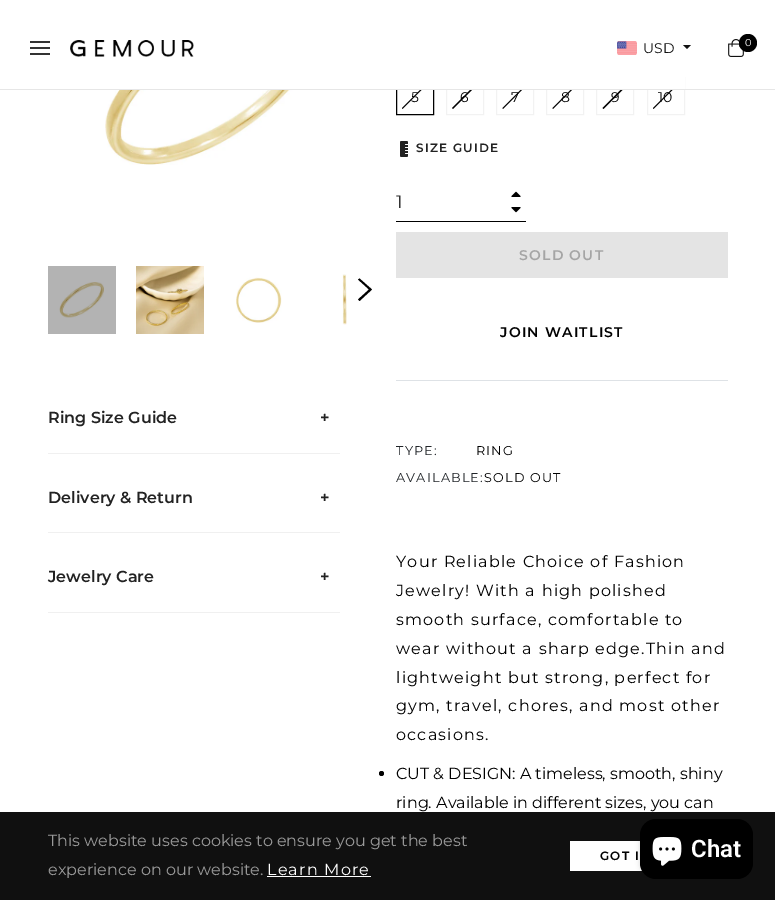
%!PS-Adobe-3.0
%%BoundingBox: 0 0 775 900
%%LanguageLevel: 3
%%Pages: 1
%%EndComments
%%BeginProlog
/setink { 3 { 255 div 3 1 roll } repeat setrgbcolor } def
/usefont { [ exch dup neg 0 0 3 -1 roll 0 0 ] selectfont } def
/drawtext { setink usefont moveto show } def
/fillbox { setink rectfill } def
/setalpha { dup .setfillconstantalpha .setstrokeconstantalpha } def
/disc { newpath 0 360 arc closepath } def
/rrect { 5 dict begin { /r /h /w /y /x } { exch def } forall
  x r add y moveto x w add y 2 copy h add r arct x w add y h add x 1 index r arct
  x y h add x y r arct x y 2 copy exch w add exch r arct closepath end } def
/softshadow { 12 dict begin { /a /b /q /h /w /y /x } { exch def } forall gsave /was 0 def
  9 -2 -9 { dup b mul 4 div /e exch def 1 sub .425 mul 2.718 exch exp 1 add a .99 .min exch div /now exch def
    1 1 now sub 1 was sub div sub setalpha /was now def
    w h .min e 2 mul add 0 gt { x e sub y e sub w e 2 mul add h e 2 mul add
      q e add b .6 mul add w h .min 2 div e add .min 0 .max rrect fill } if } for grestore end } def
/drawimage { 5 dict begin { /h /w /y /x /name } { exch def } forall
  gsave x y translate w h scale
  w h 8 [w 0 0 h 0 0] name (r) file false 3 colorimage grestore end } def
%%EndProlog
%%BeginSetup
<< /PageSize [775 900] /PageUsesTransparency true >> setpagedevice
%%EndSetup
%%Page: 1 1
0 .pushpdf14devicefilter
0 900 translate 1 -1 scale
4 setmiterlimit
0 0 775 900 255 255 255 fillbox
48 266 68 68 179 179 179 fillbox
0 0 0 setink
396.5 77.5 37 37 rectstroke
427.5 82.5 moveto 428 83.5 lineto 402.5 109 lineto 402 108 lineto closepath fill
242 242 242 setink
446.5 77.5 37 37 rectstroke
0 0 0 setink
477.5 82.5 moveto 478.5 83.5 lineto 453 109 lineto 452 108 lineto closepath fill
242 242 242 setink
496.5 77.5 37 37 rectstroke
0 0 0 setink
528 82.5 moveto 528.5 83.5 lineto 503 109 lineto 502.5 108 lineto closepath fill
242 242 242 setink
546.5 77.5 37 37 rectstroke
0 0 0 setink
578 82.5 moveto 578.5 83.5 lineto 553 109 lineto 552.5 108 lineto closepath fill
242 242 242 setink
596.5 77.5 37 37 rectstroke
0 0 0 setink
628 82.5 moveto 629 83.5 lineto 603.5 109 lineto 602.5 108 lineto closepath fill
242 242 242 setink
647.5 77.5 37 37 rectstroke
0 0 0 setink
678.5 82.5 moveto 679 83.5 lineto 653.5 109 lineto 653 108 lineto closepath fill
396 77 289 12 255 255 255 fillbox
0 89 775 1 230 230 230 fillbox
30 41 20 2 51 51 51 fillbox
30 47 20 2 51 51 51 fillbox
30 53 20 2 51 51 51 fillbox
(assets/img1.rgb) 70 40 124 17 drawimage
(assets/img2.rgb) 617 41 20 14 drawimage
(USD) 643 53 /Montserrat-Regular 14 17 17 17 drawtext
683 45 moveto 691 45 lineto 687 49 lineto closepath fill
(assets/img3.rgb) 728 39 16 18 drawimage
0 0 0 setink
748 43 9 disc fill
(0) 745 46 /Montserrat-Regular 10 255 255 255 drawtext
(assets/img4.rgb) 105 90 217 75 drawimage
(assets/img5.rgb) 59 282 45 36 drawimage
(assets/img6.rgb) 136 266 68 68 drawimage
(assets/img7.rgb) 236 277 46 46 drawimage
(assets/img8.rgb) 342 274 5 51 drawimage
0 0 0 setink
358 279.5 moveto 359.5 278.5 lineto 372 289.5 lineto 359.5 301 lineto 358 299.5 lineto 369 289.5 lineto closepath fill
48 453 292 1 240 240 240 fillbox
(Ring Size Guide) 48 423 /Montserrat-SemiBold 16 34 34 34 drawtext
(+) 320 423 /Montserrat-SemiBold 16 34 34 34 drawtext
48 532 292 1 240 240 240 fillbox
(Delivery & Return) 48 503 /Montserrat-SemiBold 16 34 34 34 drawtext
(+) 320 503 /Montserrat-SemiBold 16 34 34 34 drawtext
48 612 292 1 240 240 240 fillbox
(Jewelry Care) 48 582 /Montserrat-SemiBold 16 34 34 34 drawtext
(+) 320 582 /Montserrat-SemiBold 16 34 34 34 drawtext
(5) 411 102 /Montserrat-Regular 14 0 0 0 drawtext
(6) 460 102 /Montserrat-Regular 14 0 0 0 drawtext
(7) 511 102 /Montserrat-Regular 14 0 0 0 drawtext
(8) 561 102 /Montserrat-Regular 14 0 0 0 drawtext
(9) 611 102 /Montserrat-Regular 14 0 0 0 drawtext
(10) 658 102 /Montserrat-Regular 14 0 0 0 drawtext
(assets/img9.rgb) 400 141 8 16 drawimage
/Montserrat-SemiBold 12 usefont
34 34 34 setink
416 152 moveto 1.2 0 (SIZE GUIDE) ashow
(assets/img10.rgb) 511 191 10 6 drawimage
396 221 130 1 0 0 0 fillbox
(1) 396 208 /Montserrat-Regular 18 51 51 51 drawtext
(assets/img11.rgb) 511 207 10 6 drawimage
396 232 332 46 228 228 228 fillbox
/Montserrat-SemiBold 14 usefont
165 165 165 setink
519 260 moveto 1.2 0 (SOLD OUT) ashow
0 0 0 setink
500 337 moveto 1.2 0 (JOIN WAITLIST) ashow
396 380 332 1 222 226 230 fillbox
/Montserrat-Regular 12.75 usefont
33 37 41 setink
396 455 moveto 1.2 0 (TYPE:) ashow
0 0 0 setink
476 455 moveto 1.2 0 (RING) ashow
33 37 41 setink
396 482 moveto 1.2 0 (AVAILABLE:) ashow
0 0 0 setink
484 482 moveto 1.2 0 (SOLD OUT) ashow
/Montserrat-Regular 16 usefont
396 567 moveto 1.2 0 (Your Reliable Choice of Fashion) ashow
396 596 moveto 1.2 0 (Jewelry! With a high polished) ashow
396 625 moveto 1.2 0 (smooth surface, comfortable to) ashow
396 654 moveto 1.2 0 (wear without a sharp edge.Thin and) ashow
396 683 moveto 1.2 0 (lightweight but strong, perfect for) ashow
396 711 moveto 1.2 0 (gym, travel, chores, and most other) ashow
396 740 moveto 1.2 0 (occasions.) ashow
381.5 773.5 2.5 disc fill
(CUT & DESIGN: A timeless, smooth, shiny) 396 779 /Montserrat-Regular 16 0 0 0 drawtext
(ring. Available in different sizes, you can) 396 808 /Montserrat-Regular 16 0 0 0 drawtext
0 812 775 88 16 16 16 fillbox
(This website uses cookies to ensure you get the best) 48 846 /Montserrat-Regular 16 153 153 153 drawtext
(experience on our website.) 48 875 /Montserrat-Regular 16 153 153 153 drawtext
255 255 255 setink
267 875 moveto 1.2 0 (Learn More) ashow
267 876 104 1 255 255 255 fillbox
570 841 73 30 255 255 255 fillbox
/Montserrat-SemiBold 12 usefont
0 0 0 setink
600 860 moveto 1.2 0 (GOT I) ashow
640 819 113 60 16 2.5 0.15 softshadow
640 819 113 60 16 rrect fill
(assets/img12.rgb) 652 837 30 29 drawimage
(Chat) 691 857 /Roboto-SemiBold 24 255 255 255 drawtext
.poppdf14devicefilter showpage
%%EOF
